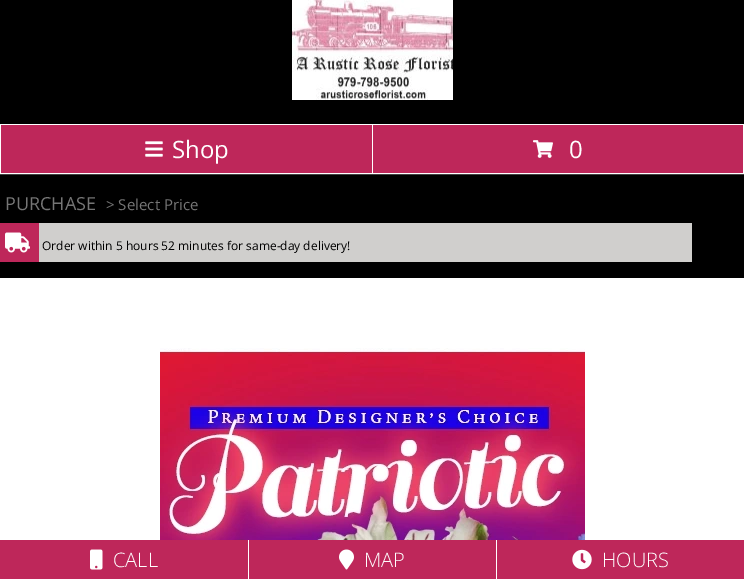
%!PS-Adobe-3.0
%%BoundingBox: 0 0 744 579
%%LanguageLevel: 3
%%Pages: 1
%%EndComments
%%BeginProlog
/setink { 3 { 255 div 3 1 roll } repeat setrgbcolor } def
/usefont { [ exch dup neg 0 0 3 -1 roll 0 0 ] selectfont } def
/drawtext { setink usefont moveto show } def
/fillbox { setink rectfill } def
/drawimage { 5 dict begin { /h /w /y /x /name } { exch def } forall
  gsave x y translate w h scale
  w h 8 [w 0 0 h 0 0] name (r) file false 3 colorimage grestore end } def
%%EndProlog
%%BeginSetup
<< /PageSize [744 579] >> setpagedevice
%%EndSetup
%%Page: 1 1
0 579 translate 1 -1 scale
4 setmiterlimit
0 0 744 579 0 0 0 fillbox
(assets/img1.rgb) 292 0 161 100 drawimage
255 255 255 setink
0.5 124.5 743 49 rectstroke
372 125 1 48 255 255 255 fillbox
1 125 371 48 190 39 90 fillbox
(assets/img2.rgb) 145 141 18 16 drawimage
(Shop) 172 158 /OpenSans-Regular 24 255 255 255 drawtext
373 125 370 48 190 39 90 fillbox
(assets/img3.rgb) 533 140 20 18 drawimage
(0) 569 158 /OpenSans-Regular 24 255 255 255 drawtext
(PURCHASE) 5 210 /OpenSans-Regular 18 117 117 117 drawtext
(> Select Price) 106 210 /OpenSans-Regular 15 117 117 117 drawtext
39 223 653 39 208 207 205 fillbox
0 223 39 39 190 39 90 fillbox
(assets/img4.rgb) 5 232 25 21 drawimage
(Order within 5 hours 52 minutes for same-day delivery!) 42 250 /OpenSans-Regular 12 0 0 0 drawtext
0 278 744 262 255 255 255 fillbox
(assets/img5.rgb) 160 348 425 192 drawimage
0 540 248 39 190 39 90 fillbox
(assets/img6.rgb) 90 549 13 21 drawimage
(CALL) 113 567 /OpenSans-Light 20 255 255 255 drawtext
249 540 247 39 190 39 90 fillbox
248 540 1 39 255 255 255 fillbox
(assets/img7.rgb) 339 549 15 21 drawimage
(MAP) 364 567 /OpenSans-Light 20 255 255 255 drawtext
497 540 247 39 190 39 90 fillbox
496 540 1 39 255 255 255 fillbox
(assets/img8.rgb) 572 549 20 21 drawimage
(HOURS) 602 567 /OpenSans-Light 20 255 255 255 drawtext
showpage
%%EOF
